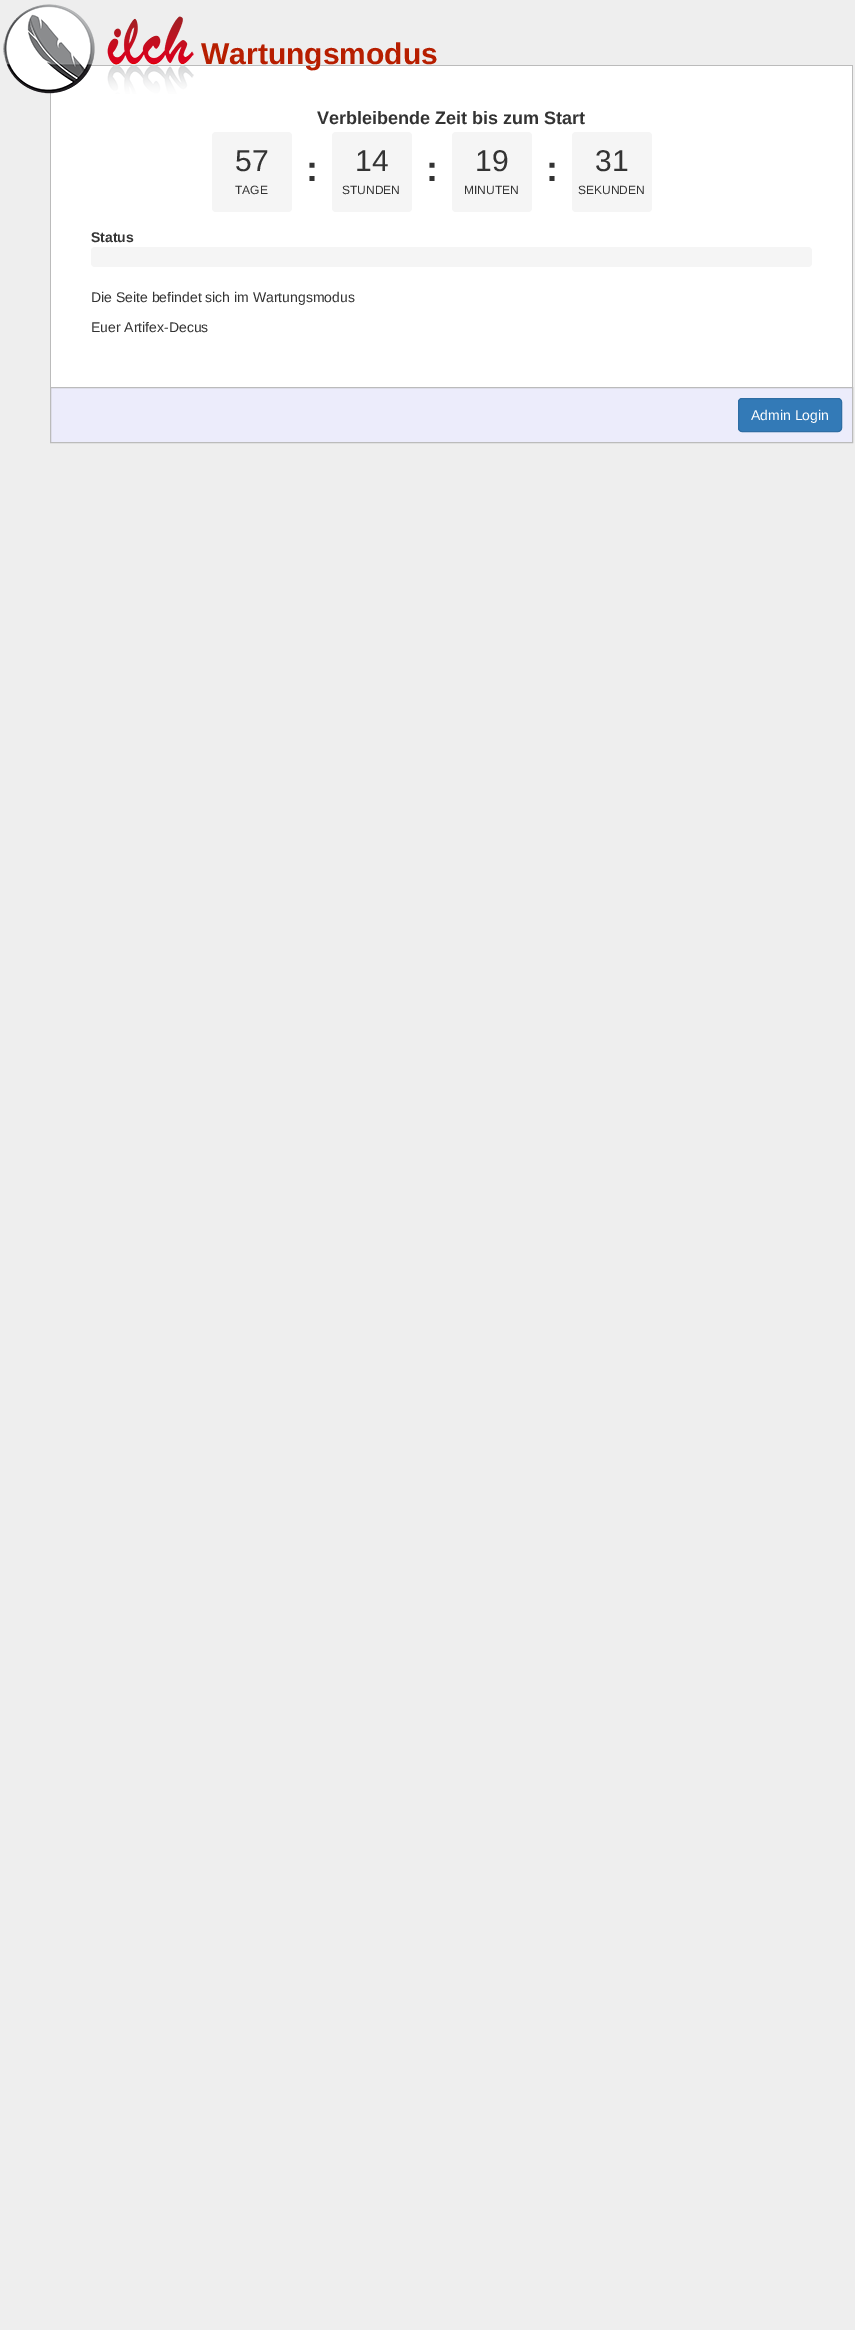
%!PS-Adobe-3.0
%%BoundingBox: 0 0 855 2330
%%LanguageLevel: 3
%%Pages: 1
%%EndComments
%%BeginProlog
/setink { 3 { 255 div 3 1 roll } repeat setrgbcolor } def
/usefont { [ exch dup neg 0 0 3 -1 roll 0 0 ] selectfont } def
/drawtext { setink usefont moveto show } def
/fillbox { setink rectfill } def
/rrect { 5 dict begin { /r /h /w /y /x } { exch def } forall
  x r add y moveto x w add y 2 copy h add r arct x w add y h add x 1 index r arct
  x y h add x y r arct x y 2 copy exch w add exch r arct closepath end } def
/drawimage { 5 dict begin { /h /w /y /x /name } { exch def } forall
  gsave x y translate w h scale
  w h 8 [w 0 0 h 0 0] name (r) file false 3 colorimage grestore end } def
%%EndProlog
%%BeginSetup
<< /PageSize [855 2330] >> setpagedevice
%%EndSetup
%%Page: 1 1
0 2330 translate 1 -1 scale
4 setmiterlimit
0 0 855 2330 238 238 238 fillbox
51 66 801 321 255 255 255 fillbox
86 65 767 1 187 187 187 fillbox
852 65 1 322 187 187 187 fillbox
50 93 1 294 187 187 187 fillbox
(assets/img1.rgb) 3 4 191 90 drawimage
(Wartungsmodus) 201 64 /LiberationSans-Bold 30 183 30 0 drawtext
(Verbleibende Zeit bis zum Start) 317 124 /LiberationSans-Bold 18 51 51 51 drawtext
245 245 245 setink
212 132 80 80 4 rrect fill
(57) 235 171 /LiberationSans-Regular 30 51 51 51 drawtext
(TAGE) 235 194 /LiberationSans-Regular 12 51 51 51 drawtext
(:) 306 181 /LiberationSans-Bold 36 51 51 51 drawtext
245 245 245 setink
332 132 80 80 4 rrect fill
(14) 355 171 /LiberationSans-Regular 30 51 51 51 drawtext
(STUNDEN) 342 194 /LiberationSans-Regular 12 51 51 51 drawtext
(:) 426 181 /LiberationSans-Bold 36 51 51 51 drawtext
245 245 245 setink
452 132 80 80 4 rrect fill
(19) 475 171 /LiberationSans-Regular 30 51 51 51 drawtext
(MINUTEN) 464 194 /LiberationSans-Regular 12 51 51 51 drawtext
(:) 546 181 /LiberationSans-Bold 36 51 51 51 drawtext
245 245 245 setink
572 132 80 80 4 rrect fill
(31) 595 171 /LiberationSans-Regular 30 51 51 51 drawtext
(SEKUNDEN) 578 194 /LiberationSans-Regular 12 51 51 51 drawtext
(Status) 91 242 /LiberationSans-Bold 14 51 51 51 drawtext
245 245 245 setink
91 247 721 20 4 rrect fill
(Die Seite befindet sich im Wartungsmodus) 91 302 /LiberationSans-Regular 14 51 51 51 drawtext
(Euer Artifex-Decus) 91 332 /LiberationSans-Regular 14 51 51 51 drawtext
236 236 251 setink
50.5 387.5 moveto 852.5 387.5 lineto 852.5 442.5 lineto 50.5 442.5 lineto closepath gsave fill grestore
187 187 187 setink
stroke
51 122 183 setink
738.5 398.5 103 33 3.5 rrect gsave fill grestore
46 109 164 setink
stroke
(Admin Login) 751 420 /LiberationSans-Regular 14 255 255 255 drawtext
showpage
%%EOF
